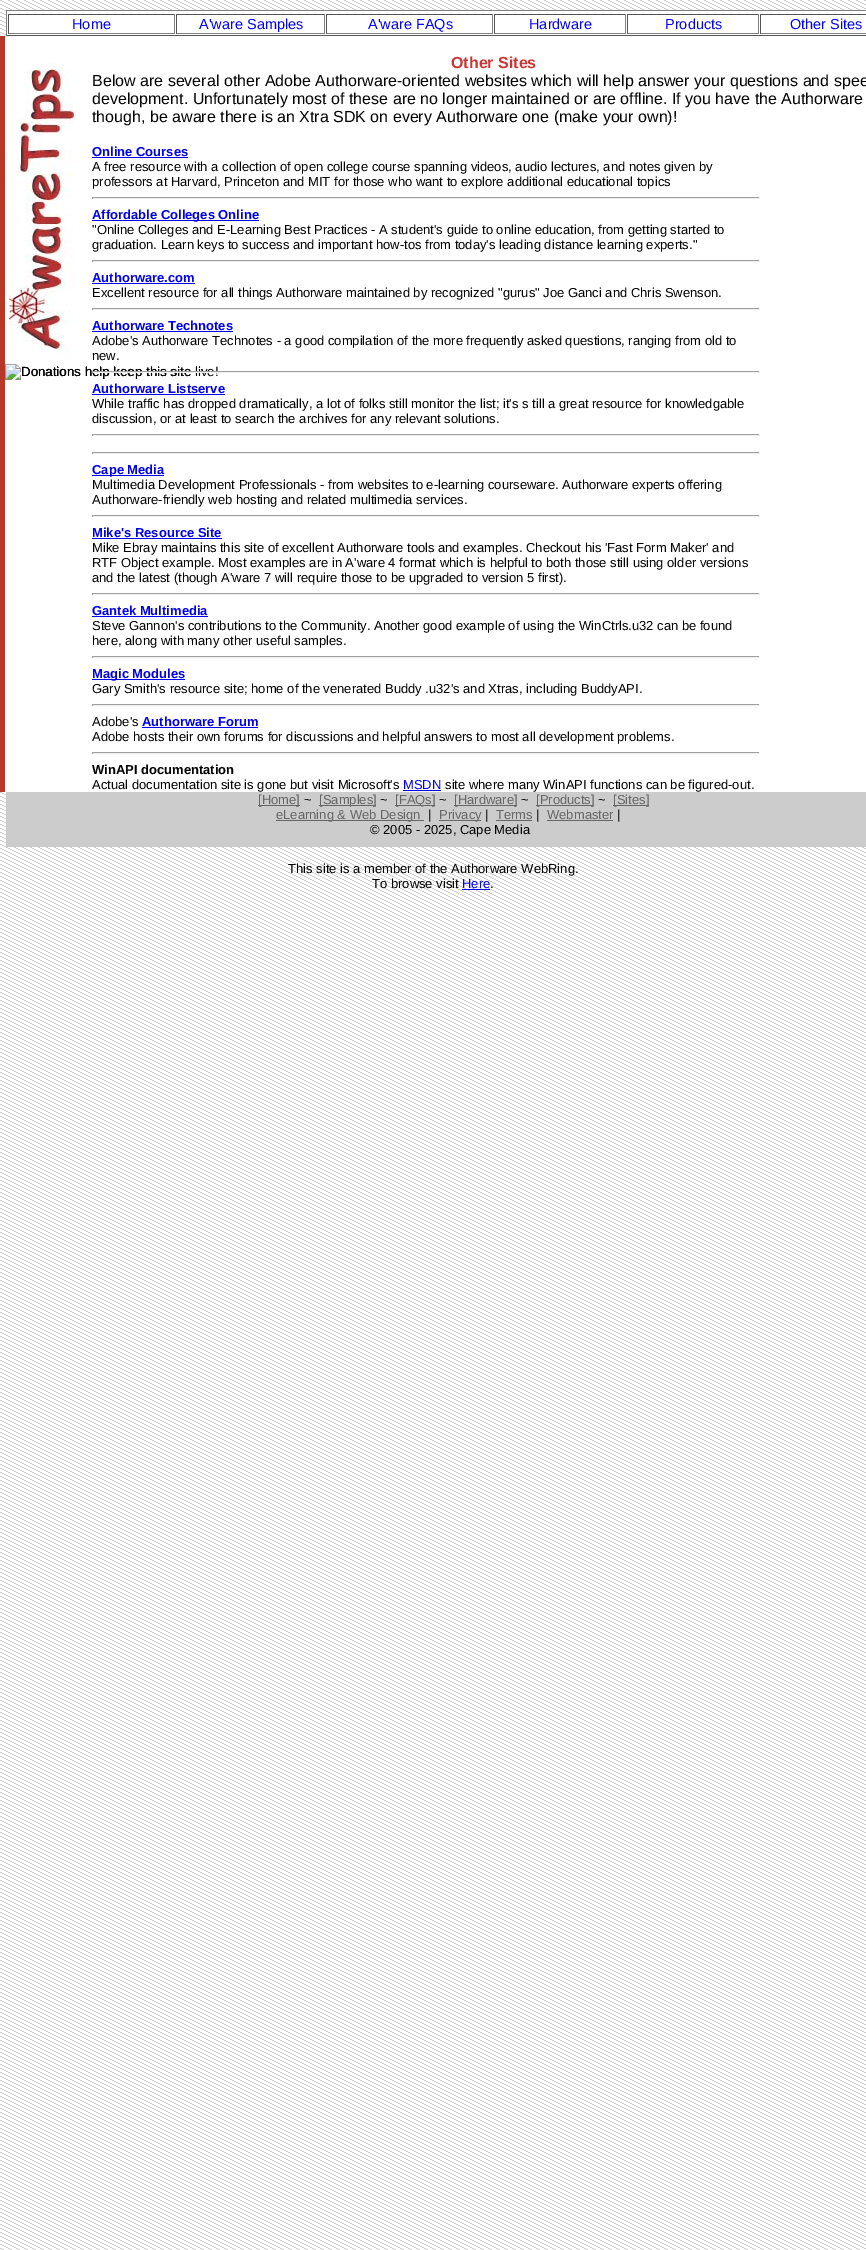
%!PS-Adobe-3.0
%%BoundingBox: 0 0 866 2250
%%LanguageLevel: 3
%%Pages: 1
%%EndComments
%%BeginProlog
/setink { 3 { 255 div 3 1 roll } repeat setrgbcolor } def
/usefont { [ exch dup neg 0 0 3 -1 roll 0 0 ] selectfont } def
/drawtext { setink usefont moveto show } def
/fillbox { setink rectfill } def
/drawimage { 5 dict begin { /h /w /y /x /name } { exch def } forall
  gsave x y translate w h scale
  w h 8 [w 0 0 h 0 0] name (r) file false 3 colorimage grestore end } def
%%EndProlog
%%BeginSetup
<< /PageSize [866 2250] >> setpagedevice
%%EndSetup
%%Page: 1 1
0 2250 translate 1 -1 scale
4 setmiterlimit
0 0 866 2250 255 255 255 fillbox
(assets/img1.rgb) 0 0 866 2250 drawimage
7 11 859 24 255 255 255 fillbox
6 10 860 1 128 128 128 fillbox
6 35 860 1 85 85 85 fillbox
6 10 1 26 128 128 128 fillbox
8 14 167 1 85 85 85 fillbox
174 14 1 20 128 128 128 fillbox
8 33 167 1 128 128 128 fillbox
8 14 1 20 85 85 85 fillbox
(Home) 72 29 /LiberationSans-Regular 14.5 0 0 255 drawtext
176 14 149 1 85 85 85 fillbox
324 14 1 20 128 128 128 fillbox
176 33 149 1 128 128 128 fillbox
176 14 1 20 85 85 85 fillbox
(A'ware Samples) 199 29 /LiberationSans-Regular 14.5 0 0 255 drawtext
326 14 167 1 85 85 85 fillbox
492 14 1 20 128 128 128 fillbox
326 33 167 1 128 128 128 fillbox
326 14 1 20 85 85 85 fillbox
(A'ware FAQs) 368 29 /LiberationSans-Regular 14.5 0 0 255 drawtext
494 14 132 1 85 85 85 fillbox
625 14 1 20 128 128 128 fillbox
494 33 132 1 128 128 128 fillbox
494 14 1 20 85 85 85 fillbox
(Hardware) 529 29 /LiberationSans-Regular 14.5 0 0 255 drawtext
627 14 132 1 85 85 85 fillbox
758 14 1 20 128 128 128 fillbox
627 33 132 1 128 128 128 fillbox
627 14 1 20 85 85 85 fillbox
(Products) 665 29 /LiberationSans-Regular 14.5 0 0 255 drawtext
760 14 106 1 85 85 85 fillbox
760 33 106 1 128 128 128 fillbox
760 14 1 20 85 85 85 fillbox
(Other Sites) 790 29 /LiberationSans-Regular 14.5 0 0 255 drawtext
5 36 861 756 255 255 255 fillbox
0 36 5 756 184 56 40 fillbox
(Other Sites) 451 68 /LiberationSans-Bold 16 204 51 51 drawtext
(Below are several other Adobe Authorware-oriented websites which will help answer your questions and spee) 92 86 /LiberationSans-Regular 16 0 0 0 drawtext
(development. Unfortunately most of these are no longer maintained or are offline. If you have the Authorware) 92 104 /LiberationSans-Regular 16 0 0 0 drawtext
(though, be aware there is an Xtra SDK on every Authorware one \(make your own\)!) 92 122 /LiberationSans-Regular 16 0 0 0 drawtext
(assets/img2.rgb) 9 62 68 296 drawimage
(assets/img3.rgb) 5 364 198 16 drawimage
(Donations help keep this site live!) 21 376 /LiberationSans-Regular 13.3 0 0 0 drawtext
(Online Courses) 92 156 /LiberationSans-Bold 13 0 0 238 drawtext
92 157 96 1 0 0 238 fillbox
(A free resource with a collection of open college course spanning videos, audio lectures, and notes given by) 92 171 /LiberationSans-Regular 13 0 0 0 drawtext
(professors at Harvard, Princeton and MIT for those who want to explore additional educational topics) 92 186 /LiberationSans-Regular 13 0 0 0 drawtext
92 197 668 1 159 159 159 fillbox
759 197 1 2 238 238 238 fillbox
92 198 668 1 238 238 238 fillbox
92 197 1 2 159 159 159 fillbox
92 220 167 1 0 0 238 fillbox
(Affordable Colleges Online) 92 219 /LiberationSans-Bold 13 0 0 238 drawtext
("Online Colleges and E-Learning Best Practices - A student's guide to online education, from getting started to) 92 234 /LiberationSans-Regular 13 0 0 0 drawtext
(graduation. Learn keys to success and important how-tos from today's leading distance learning experts.") 92 249 /LiberationSans-Regular 13 0 0 0 drawtext
92 260 668 1 159 159 159 fillbox
759 260 1 2 238 238 238 fillbox
92 261 668 1 238 238 238 fillbox
92 260 1 2 159 159 159 fillbox
(Authorware.com) 92 282 /LiberationSans-Bold 13 0 0 238 drawtext
92 283 103 1 0 0 238 fillbox
(Excellent resource for all things Authorware maintained by recognized "gurus" Joe Ganci and Chris Swenson.) 92 297 /LiberationSans-Regular 13 0 0 0 drawtext
92 308 668 1 159 159 159 fillbox
759 308 1 2 238 238 238 fillbox
92 309 668 1 238 238 238 fillbox
92 308 1 2 159 159 159 fillbox
(Authorware Technotes) 92 330 /LiberationSans-Bold 13 0 0 238 drawtext
92 331 141 1 0 0 238 fillbox
(Adobe's Authorware Technotes - a good compilation of the more frequently asked questions, ranging from old to) 92 345 /LiberationSans-Regular 13 0 0 0 drawtext
(new.) 92 360 /LiberationSans-Regular 13 0 0 0 drawtext
92 371 668 1 159 159 159 fillbox
759 371 1 2 238 238 238 fillbox
92 372 668 1 238 238 238 fillbox
92 371 1 2 159 159 159 fillbox
(Authorware Listserve) 92 393 /LiberationSans-Bold 13 0 0 238 drawtext
92 394 133 1 0 0 238 fillbox
(While traffic has dropped dramatically, a lot of folks still monitor the list; it's s till a great resource for knowledgable) 92 408 /LiberationSans-Regular 13 0 0 0 drawtext
(discussion, or at least to search the archives for any relevant solutions.) 92 423 /LiberationSans-Regular 13 0 0 0 drawtext
92 434 668 1 159 159 159 fillbox
759 434 1 2 238 238 238 fillbox
92 435 668 1 238 238 238 fillbox
92 434 1 2 159 159 159 fillbox
92 452 668 1 159 159 159 fillbox
759 452 1 2 238 238 238 fillbox
92 453 668 1 238 238 238 fillbox
92 452 1 2 159 159 159 fillbox
92 475 72 1 0 0 238 fillbox
(Cape Media) 92 474 /LiberationSans-Bold 13 0 0 238 drawtext
(Multimedia Development Professionals - from websites to e-learning courseware. Authorware experts offering) 92 489 /LiberationSans-Regular 13 0 0 0 drawtext
(Authorware-friendly web hosting and related multimedia services.) 92 504 /LiberationSans-Regular 13 0 0 0 drawtext
92 515 668 1 159 159 159 fillbox
759 515 1 2 238 238 238 fillbox
92 516 668 1 238 238 238 fillbox
92 515 1 2 159 159 159 fillbox
(Mike's Resource Site) 92 537 /LiberationSans-Bold 13 0 0 238 drawtext
92 538 130 1 0 0 238 fillbox
(Mike Ebray maintains this site of excellent Authorware tools and examples. Checkout his 'Fast Form Maker' and) 92 552 /LiberationSans-Regular 13 0 0 0 drawtext
(RTF Object example. Most examples are in A'ware 4 format which is helpful to both those still using older versions) 92 567 /LiberationSans-Regular 13 0 0 0 drawtext
(and the latest \(though A'ware 7 will require those to be upgraded to version 5 first\).) 92 582 /LiberationSans-Regular 13 0 0 0 drawtext
92 593 668 1 159 159 159 fillbox
759 593 1 2 238 238 238 fillbox
92 594 668 1 238 238 238 fillbox
92 593 1 2 159 159 159 fillbox
(Gantek Multimedia) 92 615 /LiberationSans-Bold 13 0 0 238 drawtext
92 616 116 1 0 0 238 fillbox
(Steve Gannon's contributions to the Community. Another good example of using the WinCtrls.u32 can be found) 92 630 /LiberationSans-Regular 13 0 0 0 drawtext
(here, along with many other useful samples.) 92 645 /LiberationSans-Regular 13 0 0 0 drawtext
92 656 668 1 159 159 159 fillbox
759 656 1 2 238 238 238 fillbox
92 657 668 1 238 238 238 fillbox
92 656 1 2 159 159 159 fillbox
92 679 93 1 0 0 238 fillbox
(Magic Modules) 92 678 /LiberationSans-Bold 13 0 0 238 drawtext
(Gary Smith's resource site; home of the venerated Buddy .u32's and Xtras, including BuddyAPI.) 92 693 /LiberationSans-Regular 13 0 0 0 drawtext
92 704 668 1 159 159 159 fillbox
759 704 1 2 238 238 238 fillbox
92 705 668 1 238 238 238 fillbox
92 704 1 2 159 159 159 fillbox
(Adobe's) 92 726 /LiberationSans-Regular 13 0 0 0 drawtext
(Authorware Forum) 142 726 /LiberationSans-Bold 13 0 0 238 drawtext
142 727 116 1 0 0 238 fillbox
(Adobe hosts their own forums for discussions and helpful answers to most all development problems.) 92 741 /LiberationSans-Regular 13 0 0 0 drawtext
92 752 668 1 159 159 159 fillbox
759 752 1 2 238 238 238 fillbox
92 753 668 1 238 238 238 fillbox
92 752 1 2 159 159 159 fillbox
(WinAPI documentation) 92 774 /LiberationSans-Bold 13 0 0 0 drawtext
(Actual documentation site is gone but visit Microsoft's) 92 789 /LiberationSans-Regular 13 0 0 0 drawtext
(MSDN) 403 789 /LiberationSans-Regular 13 0 0 238 drawtext
403 790 38 1 0 0 238 fillbox
(site where many WinAPI functions can be figured-out.) 445 789 /LiberationSans-Regular 13 0 0 0 drawtext
6 792 860 55 204 204 204 fillbox
258 805 42 1 102 102 102 fillbox
([Home]) 258 804 /LiberationSans-Regular 13 102 102 102 drawtext
(~) 304 804 /LiberationSans-Regular 13 0 0 0 drawtext
319 805 57 1 102 102 102 fillbox
([Samples]) 319 804 /LiberationSans-Regular 13 102 102 102 drawtext
(~) 380 804 /LiberationSans-Regular 13 0 0 0 drawtext
395 805 40 1 102 102 102 fillbox
([FAQs]) 395 804 /LiberationSans-Regular 13 102 102 102 drawtext
(~) 439 804 /LiberationSans-Regular 13 0 0 0 drawtext
454 805 63 1 102 102 102 fillbox
([Hardware]) 454 804 /LiberationSans-Regular 13 102 102 102 drawtext
(~) 521 804 /LiberationSans-Regular 13 0 0 0 drawtext
536 805 58 1 102 102 102 fillbox
([Products]) 536 804 /LiberationSans-Regular 13 102 102 102 drawtext
(~) 598 804 /LiberationSans-Regular 13 0 0 0 drawtext
613 805 36 1 102 102 102 fillbox
([Sites]) 613 804 /LiberationSans-Regular 13 102 102 102 drawtext
276 820 148 1 102 102 102 fillbox
(eLearning & Web Design) 276 819 /LiberationSans-Regular 13 102 102 102 drawtext
(|) 428 819 /LiberationSans-Regular 13 0 0 0 drawtext
439 820 42 1 102 102 102 fillbox
(Privacy) 439 819 /LiberationSans-Regular 13 102 102 102 drawtext
(|) 485 819 /LiberationSans-Regular 13 0 0 0 drawtext
(Terms) 496 819 /LiberationSans-Regular 13 102 102 102 drawtext
496 820 36 1 102 102 102 fillbox
(|) 536 819 /LiberationSans-Regular 13 0 0 0 drawtext
(Webmaster) 547 819 /LiberationSans-Regular 13 102 102 102 drawtext
547 820 66 1 102 102 102 fillbox
(|) 617 819 /LiberationSans-Regular 13 0 0 0 drawtext
(© 2005 - 2025, Cape Media) 370 834 /LiberationSans-Regular 13 0 0 0 drawtext
(This site is a member of the Authorware WebRing.) 288 873 /LiberationSans-Regular 13 0 0 0 drawtext
(To browse visit) 372 888 /LiberationSans-Regular 13 0 0 0 drawtext
(Here) 462 888 /LiberationSans-Regular 13 0 0 238 drawtext
(.) 490 888 /LiberationSans-Regular 13 0 0 0 drawtext
462 889 28 1 0 0 238 fillbox
showpage
%%EOF
